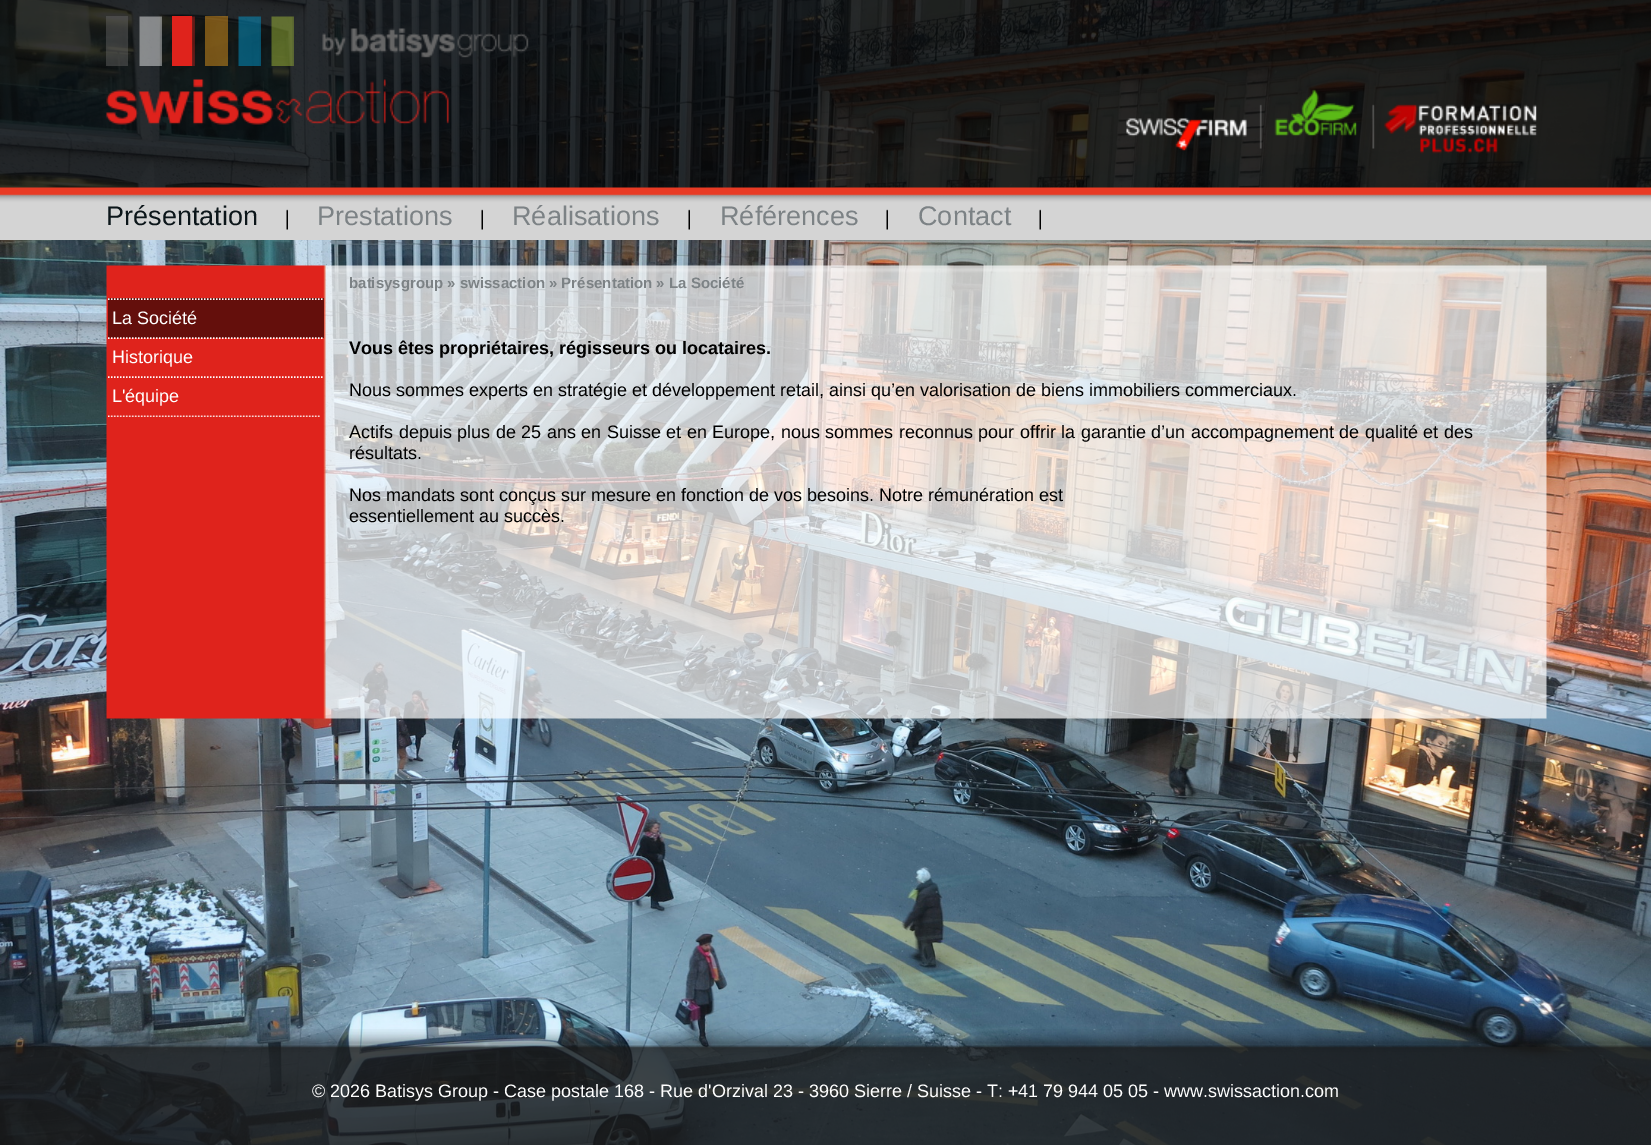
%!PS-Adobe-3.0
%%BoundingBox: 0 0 1651 1145
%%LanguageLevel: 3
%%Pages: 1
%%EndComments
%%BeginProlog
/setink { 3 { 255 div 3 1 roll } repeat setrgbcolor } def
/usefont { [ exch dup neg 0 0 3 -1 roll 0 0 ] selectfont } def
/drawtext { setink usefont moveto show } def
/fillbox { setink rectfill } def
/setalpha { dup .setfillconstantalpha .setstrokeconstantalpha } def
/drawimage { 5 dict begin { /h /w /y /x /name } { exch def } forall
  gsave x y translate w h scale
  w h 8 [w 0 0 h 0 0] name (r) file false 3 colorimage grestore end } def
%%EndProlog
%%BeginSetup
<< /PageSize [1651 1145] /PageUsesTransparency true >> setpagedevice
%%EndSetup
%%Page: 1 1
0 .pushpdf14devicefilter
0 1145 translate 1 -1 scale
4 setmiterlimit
0 0 1651 1145 255 255 255 fillbox
(assets/img1.rgb) 0 0 1651 1145 drawimage
(assets/img2.rgb) 0 0 1651 240 drawimage
0.45 setalpha
106 16 22 50 102 102 102 fillbox
1 setalpha
(assets/img3.rgb) 139 16 23 50 drawimage
(assets/img4.rgb) 192 16 3 50 drawimage
172 16 20 50 223 35 28 fillbox
0.45 setalpha
205 16 23 50 246 164 29 fillbox
1 setalpha
(assets/img5.rgb) 238 16 23 50 drawimage
(assets/img6.rgb) 271 16 23 50 drawimage
(assets/img8.rgb) 322 28 1215 126 drawimage
(assets/img7.rgb) 106 79 343 46 drawimage
(assets/img9.rgb) 286 209 2 21 drawimage
(Présentation) 106 225 /LiberationSans-Regular 27 12 22 26 drawtext
(assets/img9.rgb) 481 209 2 21 drawimage
(Prestations) 317 225 /LiberationSans-Regular 27 124 130 133 drawtext
(assets/img9.rgb) 688 209 2 21 drawimage
(Réalisations) 512 225 /LiberationSans-Regular 27 124 130 133 drawtext
(assets/img9.rgb) 886 209 2 21 drawimage
(Références) 720 225 /LiberationSans-Regular 27 124 130 133 drawtext
(assets/img9.rgb) 1039 209 2 21 drawimage
(Contact) 918 225 /LiberationSans-Regular 27 124 130 133 drawtext
(assets/img10.rgb) 106 265 1441 454 drawimage
108 298 216 40 100 15 12 fillbox
255 255 255 setink
1.5 setlinewidth
[1.5 1.5] 0 setdash
108 299 moveto 324 299 lineto stroke
(La Société) 112 324 /LiberationSans-Regular 18 255 255 255 drawtext
108 338 moveto 324 338 lineto stroke
(Historique) 112 363 /LiberationSans-Regular 18 255 255 255 drawtext
108 377 moveto 324 377 lineto stroke
(L'équipe) 112 402 /LiberationSans-Regular 18 255 255 255 drawtext
(assets/img11.rgb) 108 415 212 2 drawimage
(batisysgroup » swissaction » Présentation » La Société) 349 288 /LiberationSans-Bold 15 124 130 133 drawtext
(Vous êtes propriétaires, régisseurs ou locataires.) 349 354 /LiberationSans-Bold 18 0 0 0 drawtext
(Nous sommes experts en stratégie et développement retail, ainsi qu’en valorisation de biens immobiliers commerciaux.) 349 396 /LiberationSans-Regular 18 0 0 0 drawtext
349 438 moveto 0.5 0 32 (Actifs depuis plus de 25 ans en Suisse et en Europe, nous sommes reconnus pour offrir la garantie d’un accompagnement de qualité et des) widthshow
(résultats.) 349 459 /LiberationSans-Regular 18 0 0 0 drawtext
(Nos mandats sont conçus sur mesure en fonction de vos besoins. Notre rémunération est) 349 501 /LiberationSans-Regular 18 0 0 0 drawtext
(essentiellement au succès.) 349 522 /LiberationSans-Regular 18 0 0 0 drawtext
(assets/img12.rgb) 0 1029 1651 116 drawimage
(© 2026 Batisys Group - Case postale 168 - Rue d'Orzival 23 - 3960 Sierre / Suisse - T: +41 79 944 05 05 - www.swissaction.com) 312 1097 /LiberationSans-Regular 18 255 255 255 drawtext
.poppdf14devicefilter showpage
%%EOF
